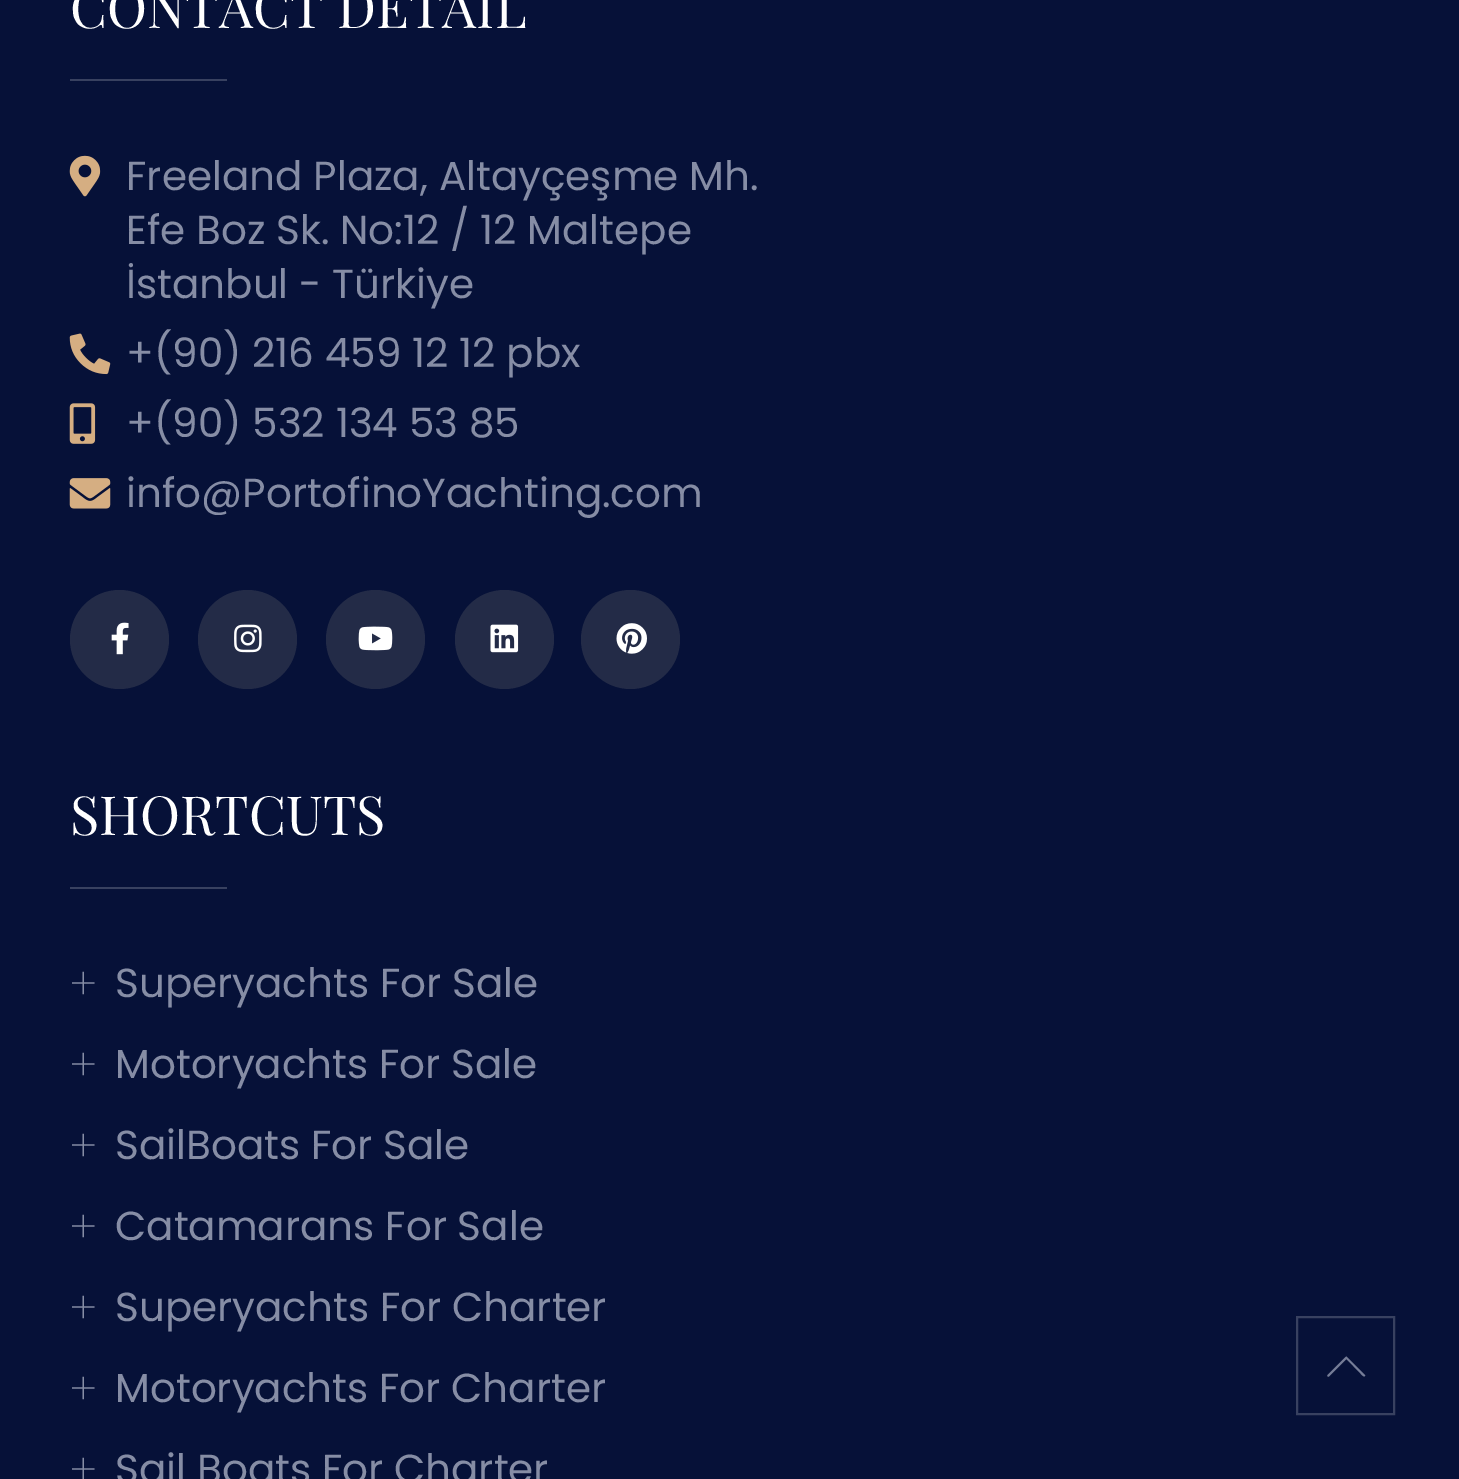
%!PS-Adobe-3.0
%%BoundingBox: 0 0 1459 1479
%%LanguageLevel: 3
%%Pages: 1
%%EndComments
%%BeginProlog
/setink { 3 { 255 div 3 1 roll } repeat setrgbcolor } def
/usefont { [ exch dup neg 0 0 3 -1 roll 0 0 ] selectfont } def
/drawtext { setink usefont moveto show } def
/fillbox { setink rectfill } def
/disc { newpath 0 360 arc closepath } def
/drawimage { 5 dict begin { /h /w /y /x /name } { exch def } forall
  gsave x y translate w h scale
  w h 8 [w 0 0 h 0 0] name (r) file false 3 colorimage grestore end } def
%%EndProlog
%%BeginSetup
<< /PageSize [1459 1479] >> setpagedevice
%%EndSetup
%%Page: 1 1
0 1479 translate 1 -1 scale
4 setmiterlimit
0 0 1459 1479 6 17 56 fillbox
(CONTACT DETAIL) 70 28 /PlayfairDisplay-Regular 54 255 255 255 drawtext
70 79 157 2 56 65 96 fillbox
(assets/img1.rgb) 69 155 32 42 drawimage
(Freeland Plaza, Altayçeşme Mh.) 126 190 /Poppins-Regular 40.5 134 141 165 drawtext
(Efe Boz Sk. No:12 / 12 Maltepe) 126 244 /Poppins-Regular 40.5 134 141 165 drawtext
(İstanbul - Türkiye) 126 298 /Poppins-Regular 40.5 134 141 165 drawtext
(assets/img2.rgb) 69 333 42 42 drawimage
(+\(90\) 216 459 12 12 pbx) 126 367 /Poppins-Regular 40.5 134 141 165 drawtext
(assets/img3.rgb) 69 403 27 41 drawimage
(+\(90\) 532 134 53 85) 126 437 /Poppins-Regular 40.5 134 141 165 drawtext
(assets/img4.rgb) 69 478 42 31 drawimage
(info@PortofinoYachting.com) 126 507 /Poppins-Regular 40.5 134 141 165 drawtext
35 43 71 setink
119.5 639.5 49.5 disc fill
(assets/img5.rgb) 111 622 18 33 drawimage
247.5 639.5 49.5 disc fill
(assets/img6.rgb) 234 624 28 29 drawimage
375.5 639.5 49.5 disc fill
(assets/img7.rgb) 358 626 35 25 drawimage
504.5 639.5 49.5 disc fill
(assets/img8.rgb) 490 624 29 29 drawimage
630.5 639.5 49.5 disc fill
(assets/img9.rgb) 616 623 31 31 drawimage
(SHORTCUTS) 70 835 /PlayfairDisplay-Regular 54 255 255 255 drawtext
70 887 157 2 56 65 96 fillbox
(+) 70 999 /PlayfairDisplay-Regular 45 134 141 165 drawtext
(Superyachts For Sale) 115 997 /Poppins-Regular 40.5 134 141 165 drawtext
(+) 70 1080 /PlayfairDisplay-Regular 45 134 141 165 drawtext
(Motoryachts For Sale) 115 1078 /Poppins-Regular 40.5 134 141 165 drawtext
(+) 70 1161 /PlayfairDisplay-Regular 45 134 141 165 drawtext
(SailBoats For Sale) 115 1159 /Poppins-Regular 40.5 134 141 165 drawtext
(+) 70 1242 /PlayfairDisplay-Regular 45 134 141 165 drawtext
(Catamarans For Sale) 115 1240 /Poppins-Regular 40.5 134 141 165 drawtext
(+) 70 1323 /PlayfairDisplay-Regular 45 134 141 165 drawtext
(Superyachts For Charter) 115 1321 /Poppins-Regular 40.5 134 141 165 drawtext
(+) 70 1404 /PlayfairDisplay-Regular 45 134 141 165 drawtext
(Motoryachts For Charter) 115 1402 /Poppins-Regular 40.5 134 141 165 drawtext
(+) 70 1485 /PlayfairDisplay-Regular 45 134 141 165 drawtext
(Sail Boats For Charter) 115 1483 /Poppins-Regular 40.5 134 141 165 drawtext
56 65 96 setink
2 setlinewidth
1297 1317 97 97 rectstroke
117 125 151 setink
1346.5 1359 moveto 1329 1376.5 lineto 1328 1377 1327 1376 1327.5 1375 curveto 1345.5 1357 lineto 1346.5 1356.5 lineto 1365 1375 lineto 1365.5 1375.5 1365 1376 1365 1376 curveto 1363.5 1377.5 1360.5 1373.5 1360.5 1373.5 curveto closepath fill
showpage
%%EOF
